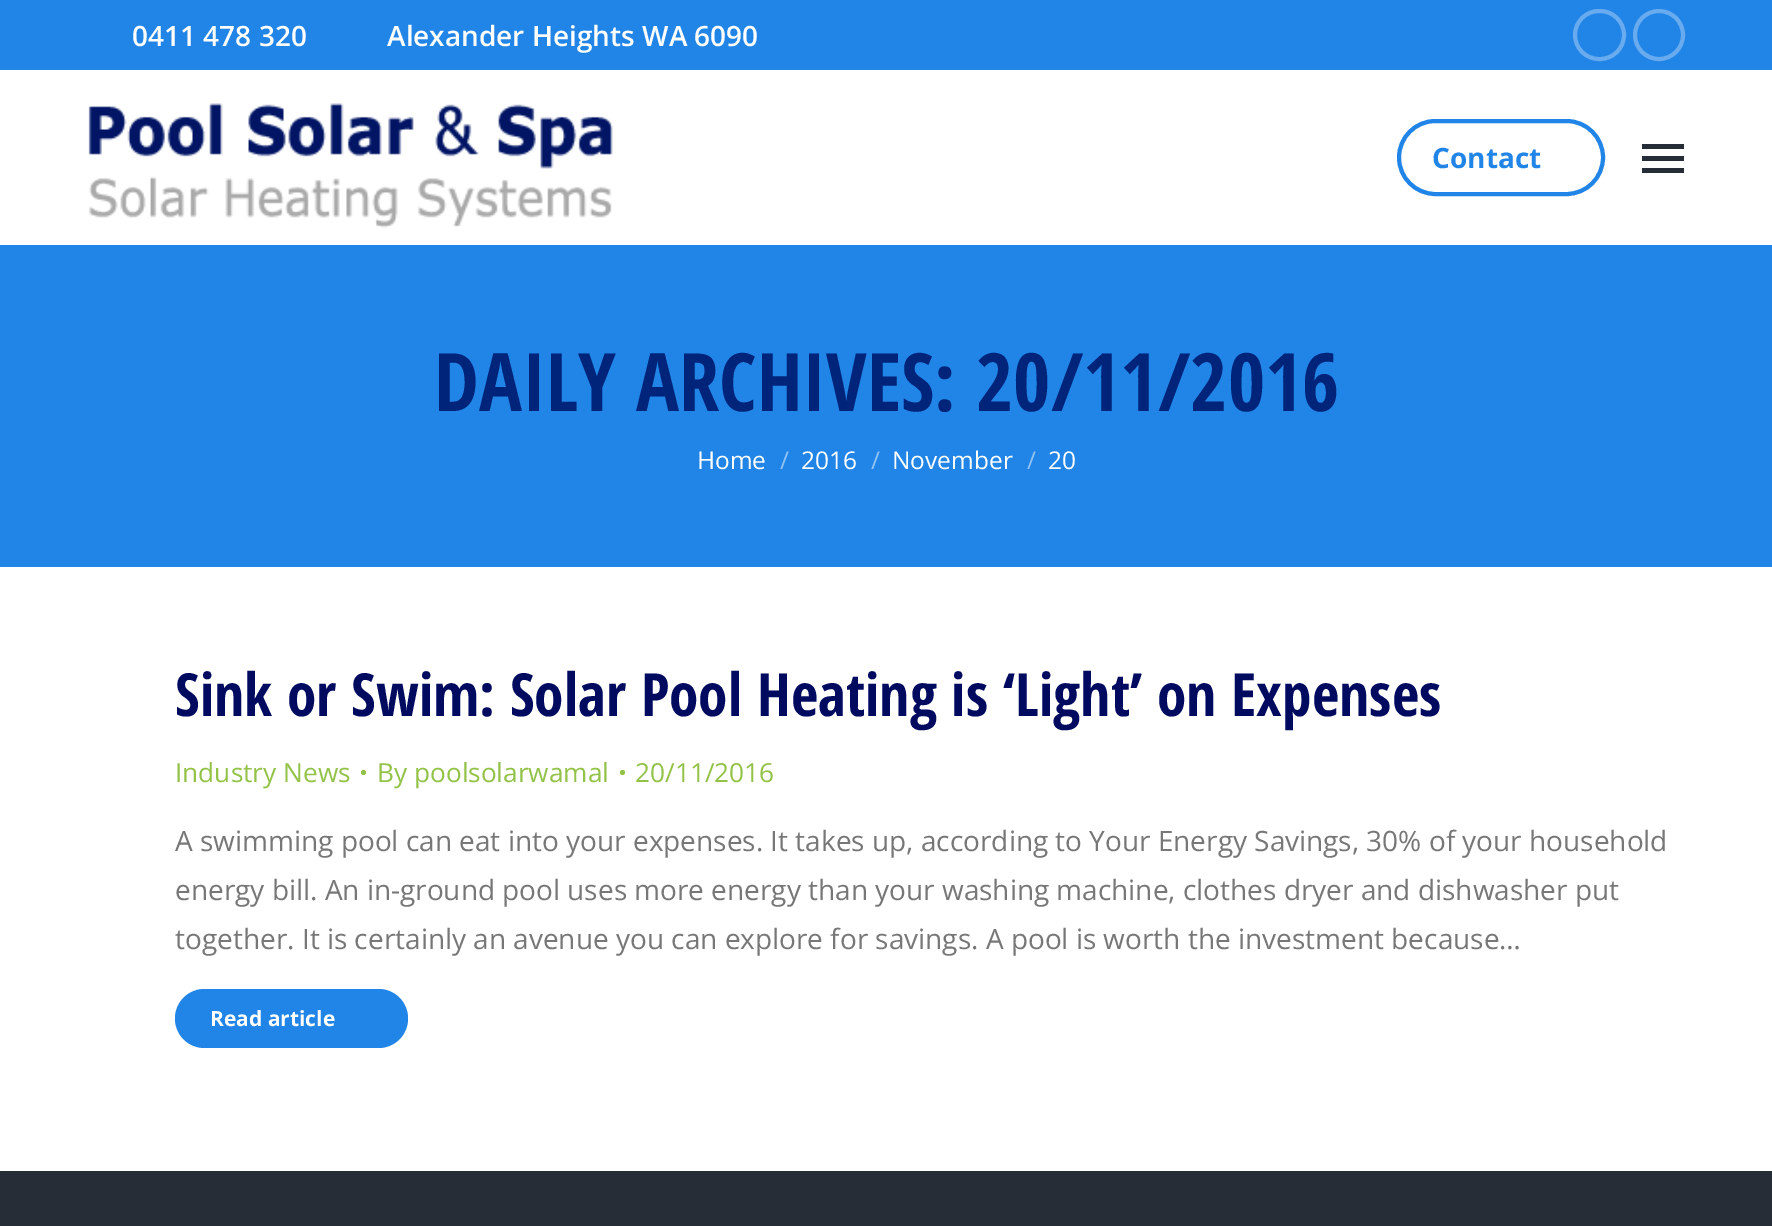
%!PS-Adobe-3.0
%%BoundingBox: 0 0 1772 1226
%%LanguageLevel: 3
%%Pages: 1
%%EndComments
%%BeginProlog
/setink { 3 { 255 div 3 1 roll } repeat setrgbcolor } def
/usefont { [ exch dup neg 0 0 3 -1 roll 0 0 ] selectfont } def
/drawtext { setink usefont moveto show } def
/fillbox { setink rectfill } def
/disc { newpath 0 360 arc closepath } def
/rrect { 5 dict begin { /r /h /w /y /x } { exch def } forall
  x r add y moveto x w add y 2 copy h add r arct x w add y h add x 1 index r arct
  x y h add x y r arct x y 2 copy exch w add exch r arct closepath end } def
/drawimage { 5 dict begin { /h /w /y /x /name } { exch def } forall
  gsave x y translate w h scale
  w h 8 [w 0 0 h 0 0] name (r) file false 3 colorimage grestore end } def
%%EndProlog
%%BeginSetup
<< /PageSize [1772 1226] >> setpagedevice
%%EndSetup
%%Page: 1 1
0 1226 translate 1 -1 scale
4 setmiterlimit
0 0 1772 1226 255 255 255 fillbox
0 0 1772 70 33 132 231 fillbox
(0411 478 320) 132 46 /OpenSans-SemiBold 28 255 255 255 drawtext
(Alexander Heights WA 6090) 387 46 /OpenSans-SemiBold 28 255 255 255 drawtext
104 171 239 setink
4 setlinewidth
1575 11 49 48 24 rrect stroke
1659 35 24 disc stroke
(assets/img1.rgb) 88 103 525 125 drawimage
33 132 231 setink
1399 121 204 73 36.5 rrect stroke
(Contact) 1432 168 /OpenSans-Bold 28 33 132 231 drawtext
1642 144 42 5 38 45 55 fillbox
1642 156 42 5 38 45 55 fillbox
1642 168 42 5 38 45 55 fillbox
0 245 1772 322 33 132 231 fillbox
(DAILY ARCHIVES: 20/11/2016) 434 411 /OpenSansCondensed-Bold 80.5 0 36 122 drawtext
(Home) 697 469 /OpenSans-Regular 24.5 255 255 255 drawtext
(/) 780 469 /OpenSans-Regular 24.5 144 194 243 drawtext
(2016) 801 469 /OpenSans-Regular 24.5 255 255 255 drawtext
(/) 871 469 /OpenSans-Regular 24.5 144 194 243 drawtext
(November) 892 469 /OpenSans-Regular 24.5 255 255 255 drawtext
(/) 1027 469 /OpenSans-Regular 24.5 144 194 243 drawtext
(20) 1048 469 /OpenSans-Regular 24.5 255 255 255 drawtext
(Sink or Swim: Solar Pool Heating is ‘Light’ on Expenses) 175 716 /OpenSansCondensed-Bold 59.5 0 11 96 drawtext
(Industry News) 175 782 /OpenSans-Regular 26.25 147 194 72 drawtext
363.5 772.5 2.5 disc fill
(By poolsolarwamal) 377 782 /OpenSans-Regular 26.25 147 194 72 drawtext
622.5 772.5 2.5 disc fill
(20/11/2016) 635 782 /OpenSans-Regular 26.25 147 194 72 drawtext
(A swimming pool can eat into your expenses. It takes up, according to Your Energy Savings, 30% of your household) 175 851 /OpenSans-Regular 28 119 119 119 drawtext
(energy bill. An in-ground pool uses more energy than your washing machine, clothes dryer and dishwasher put) 175 900 /OpenSans-Regular 28 119 119 119 drawtext
(together. It is certainly an avenue you can explore for savings. A pool is worth the investment because…) 175 949 /OpenSans-Regular 28 119 119 119 drawtext
33 132 231 setink
175 989 233 59 29.5 rrect fill
(Read article) 210 1026 /OpenSans-Bold 21 255 255 255 drawtext
0 1171 1772 55 38 45 55 fillbox
showpage
%%EOF
